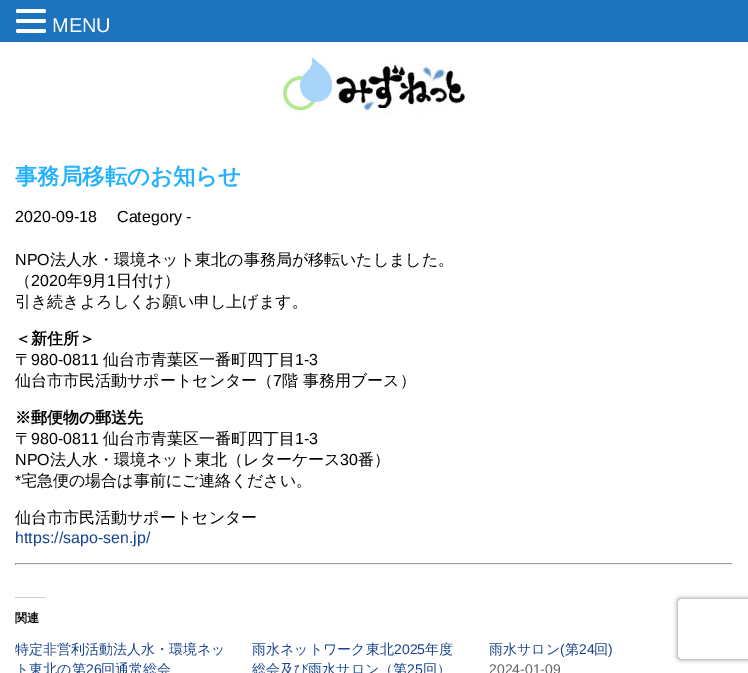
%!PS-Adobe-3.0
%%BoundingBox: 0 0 748 673
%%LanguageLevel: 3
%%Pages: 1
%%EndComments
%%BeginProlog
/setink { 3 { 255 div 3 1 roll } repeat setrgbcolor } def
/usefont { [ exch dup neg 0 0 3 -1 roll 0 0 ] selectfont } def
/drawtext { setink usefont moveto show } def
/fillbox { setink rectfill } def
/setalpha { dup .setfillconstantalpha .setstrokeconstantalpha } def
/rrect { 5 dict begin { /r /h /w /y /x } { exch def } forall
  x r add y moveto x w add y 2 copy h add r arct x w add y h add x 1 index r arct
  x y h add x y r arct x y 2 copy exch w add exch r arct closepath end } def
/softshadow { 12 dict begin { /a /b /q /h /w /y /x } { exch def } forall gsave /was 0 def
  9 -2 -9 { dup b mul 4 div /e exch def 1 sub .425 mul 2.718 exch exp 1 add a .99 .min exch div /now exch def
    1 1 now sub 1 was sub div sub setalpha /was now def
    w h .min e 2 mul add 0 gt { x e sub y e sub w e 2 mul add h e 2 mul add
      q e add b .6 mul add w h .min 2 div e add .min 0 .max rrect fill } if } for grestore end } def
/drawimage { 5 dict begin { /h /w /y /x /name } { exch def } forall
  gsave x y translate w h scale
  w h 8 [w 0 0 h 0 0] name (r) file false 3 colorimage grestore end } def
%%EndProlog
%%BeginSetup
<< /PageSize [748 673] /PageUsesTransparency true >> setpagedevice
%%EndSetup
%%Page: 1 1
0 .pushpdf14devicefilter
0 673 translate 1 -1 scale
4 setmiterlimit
0 0 748 673 255 255 255 fillbox
0 0 748 42 30 115 190 fillbox
255 255 255 setink
16 9 30 4 2 rrect fill
16 19 30 4 2 rrect fill
16 29 30 4 2 rrect fill
(MENU) 52 32 /LiberationSans-Regular 20 255 255 255 drawtext
(assets/img1.rgb) 278 52 192 64 drawimage
(事務局移転のお知らせ) 15 184 /WenQuanYiZenHei-Bold 22.4 36 177 255 drawtext
(2020-09-18) 15 222 /LiberationSans-Regular 16 0 0 0 drawtext
(Category -) 117 222 /LiberationSans-Regular 16 0 0 0 drawtext
(NPO) 15 265 /LiberationSans-Regular 16 0 0 0 drawtext
(法人水・環境ネット東北の事務局が移転いたしました。) 50 265 /WenQuanYiZenHei-Medium 16 0 0 0 drawtext
(（) 15 286 /WenQuanYiZenHei-Medium 16 0 0 0 drawtext
(2020) 31 286 /LiberationSans-Regular 16 0 0 0 drawtext
(年) 67 286 /WenQuanYiZenHei-Medium 16 0 0 0 drawtext
(9) 83 286 /LiberationSans-Regular 16 0 0 0 drawtext
(月) 91 286 /WenQuanYiZenHei-Medium 16 0 0 0 drawtext
(1) 107 286 /LiberationSans-Regular 16 0 0 0 drawtext
(日付け）) 116 286 /WenQuanYiZenHei-Medium 16 0 0 0 drawtext
(引き続きよろしくお願い申し上げます。) 15 307 /WenQuanYiZenHei-Medium 16 0 0 0 drawtext
(＜新住所＞) 15 344 /WenQuanYiZenHei-Bold 16 0 0 0 drawtext
(〒) 15 365 /WenQuanYiZenHei-Medium 16 0 0 0 drawtext
(980-0811) 31 365 /LiberationSans-Regular 16 0 0 0 drawtext
(仙台市青葉区一番町四丁目) 103 365 /WenQuanYiZenHei-Medium 16 0 0 0 drawtext
(1-3) 295 365 /LiberationSans-Regular 16 0 0 0 drawtext
(仙台市市民活動サポートセンター（) 15 386 /WenQuanYiZenHei-Medium 16 0 0 0 drawtext
(7) 273 386 /LiberationSans-Regular 16 0 0 0 drawtext
(階 事務用ブース）) 282 386 /WenQuanYiZenHei-Medium 16 0 0 0 drawtext
(※郵便物の郵送先) 15 423 /WenQuanYiZenHei-Bold 16 0 0 0 drawtext
(〒) 15 444 /WenQuanYiZenHei-Medium 16 0 0 0 drawtext
(980-0811) 31 444 /LiberationSans-Regular 16 0 0 0 drawtext
(仙台市青葉区一番町四丁目) 103 444 /WenQuanYiZenHei-Medium 16 0 0 0 drawtext
(1-3) 295 444 /LiberationSans-Regular 16 0 0 0 drawtext
(NPO) 15 465 /LiberationSans-Regular 16 0 0 0 drawtext
(法人水・環境ネット東北（レターケース) 50 465 /WenQuanYiZenHei-Medium 16 0 0 0 drawtext
(30) 340 465 /LiberationSans-Regular 16 0 0 0 drawtext
(番）) 358 465 /WenQuanYiZenHei-Medium 16 0 0 0 drawtext
(*) 15 486 /LiberationSans-Regular 16 0 0 0 drawtext
(宅急便の場合は事前にご連絡ください。) 21 486 /WenQuanYiZenHei-Medium 16 0 0 0 drawtext
(仙台市市民活動サポートセンター) 15 523 /WenQuanYiZenHei-Medium 16 0 0 0 drawtext
(https://sapo-sen.jp/) 15 543 /LiberationSans-Regular 16 25 68 142 drawtext
15 563 718 1 159 159 159 fillbox
732 563 1 2 238 238 238 fillbox
15 564 718 1 238 238 238 fillbox
15 563 1 2 159 159 159 fillbox
15 597 30 1 204 204 204 fillbox
(関連) 15 622 /WenQuanYiZenHei-Bold 12 0 0 0 drawtext
(特定非営利活動法人水・環境ネッ) 15 654 /WenQuanYiZenHei-Medium 14 25 68 142 drawtext
(ト東北の第) 15 674 /WenQuanYiZenHei-Medium 14 25 68 142 drawtext
(26) 86 674 /LiberationSans-Regular 14 25 68 142 drawtext
(回通常総会) 101 674 /WenQuanYiZenHei-Medium 14 25 68 142 drawtext
(雨水ネットワーク東北) 252 654 /WenQuanYiZenHei-Medium 14 25 68 142 drawtext
(2025) 394 654 /LiberationSans-Regular 14 25 68 142 drawtext
(年度) 425 654 /WenQuanYiZenHei-Medium 14 25 68 142 drawtext
(総会及び雨水サロン（第) 252 674 /WenQuanYiZenHei-Medium 14 25 68 142 drawtext
(25) 407 674 /LiberationSans-Regular 14 25 68 142 drawtext
(回）) 423 674 /WenQuanYiZenHei-Medium 14 25 68 142 drawtext
(雨水サロン) 489 654 /WenQuanYiZenHei-Medium 14 25 68 142 drawtext
(\() 560 654 /LiberationSans-Regular 14 25 68 142 drawtext
(第) 565 654 /WenQuanYiZenHei-Medium 14 25 68 142 drawtext
(24) 579 654 /LiberationSans-Regular 14 25 68 142 drawtext
(回) 594 654 /WenQuanYiZenHei-Medium 14 25 68 142 drawtext
(\)) 608 654 /LiberationSans-Regular 14 25 68 142 drawtext
(2024-01-09) 489 674 /LiberationSans-Regular 14 102 102 102 drawtext
gsave
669 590 moveto 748 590 lineto 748 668 lineto 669 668 lineto closepath 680 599 moveto 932 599 lineto 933 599 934 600 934 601 curveto 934 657 lineto 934 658 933 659 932 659 curveto 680 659 lineto 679 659 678 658 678 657 curveto 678 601 lineto 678 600 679 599 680 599 curveto closepath eoclip newpath
128 128 128 setink
678 599 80 60 2 2.5 1 softshadow
grestore
.poppdf14devicefilter showpage
%%EOF
